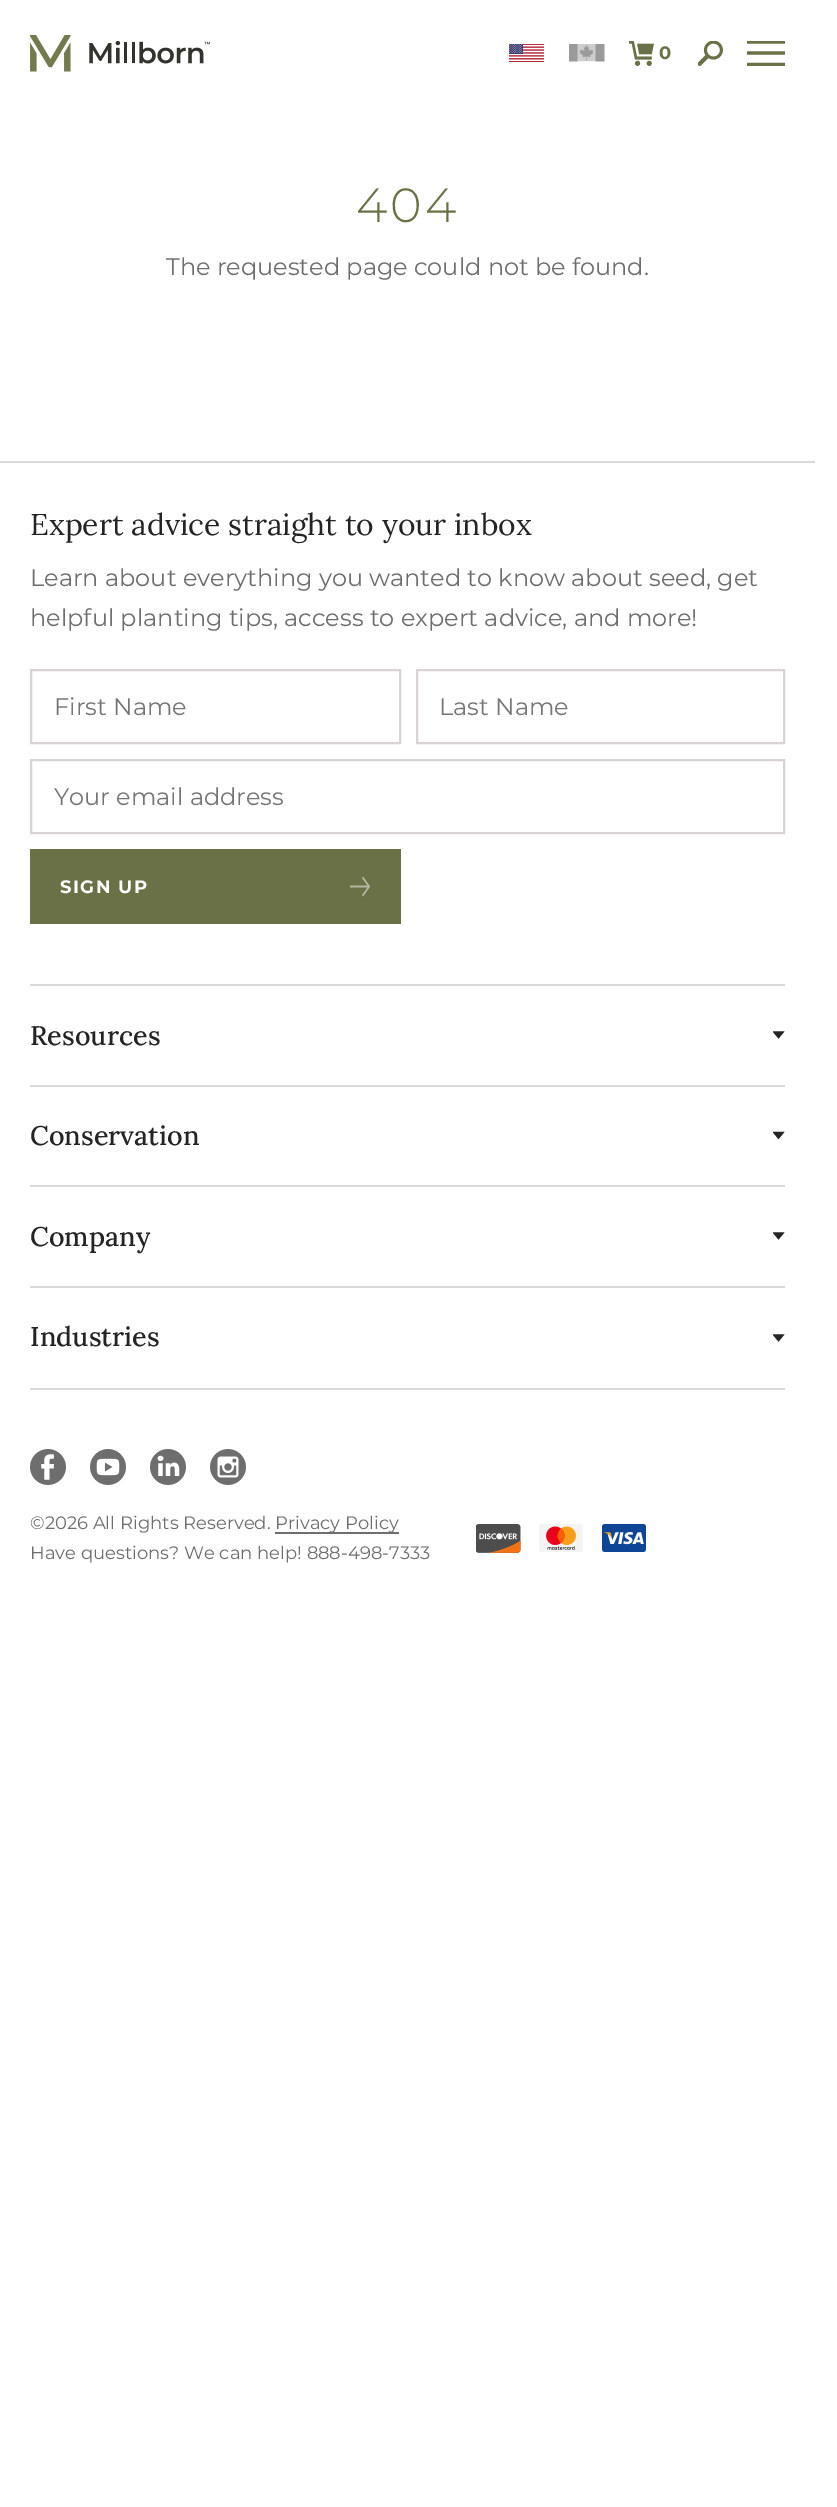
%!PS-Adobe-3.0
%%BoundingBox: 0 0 837 2507
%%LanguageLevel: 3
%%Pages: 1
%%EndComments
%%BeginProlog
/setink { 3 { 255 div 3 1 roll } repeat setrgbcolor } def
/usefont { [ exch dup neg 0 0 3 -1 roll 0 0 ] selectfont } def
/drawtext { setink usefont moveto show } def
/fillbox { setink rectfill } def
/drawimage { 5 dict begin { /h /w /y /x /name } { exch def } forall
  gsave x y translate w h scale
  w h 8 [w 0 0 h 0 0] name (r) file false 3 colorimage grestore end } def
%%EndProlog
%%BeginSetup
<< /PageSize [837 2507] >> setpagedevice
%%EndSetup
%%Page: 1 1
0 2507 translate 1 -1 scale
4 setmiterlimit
0 0 837 2507 255 255 255 fillbox
(assets/img1.rgb) 30 35 180 37 drawimage
(assets/img2.rgb) 509 44 35 18 drawimage
(assets/img3.rgb) 569 44 36 18 drawimage
(assets/img4.rgb) 629 41 25 25 drawimage
/Montserrat-Bold 18 usefont
106 113 71 setink
659 59 moveto 1.5 0 (0) ashow
(assets/img5.rgb) 698 41 25 25 drawimage
gsave
747 41 38 25 rectclip
3.2 setlinewidth
747 42 moveto 785 42 lineto 747 53 moveto 785 53 lineto 747 64.5 moveto 785 64.5 lineto stroke
grestore
/Montserrat-Light 48 usefont
356 222 moveto 3 0 (404) ashow
(The requested page could not be found.) 166 275 /Montserrat-Regular 24 110 110 110 drawtext
0 461 815 2 217 217 217 fillbox
(Expert advice straight to your inbox) 30 535 /Lora-Regular 30 36 36 36 drawtext
(Learn about everything you wanted to know about seed, get) 30 586 /Montserrat-Regular 24 110 110 110 drawtext
(helpful planting tips, access to expert advice, and more!) 30 626 /Montserrat-Regular 24 110 110 110 drawtext
218 211 213 setink
2 setlinewidth
31 670 369 73 rectstroke
(First Name) 54 715 /Montserrat-Regular 24 117 117 117 drawtext
218 211 213 setink
417 670 367 73 rectstroke
(Last Name) 439 715 /Montserrat-Regular 24 117 117 117 drawtext
218 211 213 setink
31 760 753 73 rectstroke
(Your email address) 54 805 /Montserrat-Regular 24 117 117 117 drawtext
30 849 371 75 106 113 71 fillbox
/Montserrat-Bold 18 usefont
255 255 255 setink
60 893 moveto 1.5 0 (SIGN UP) ashow
(assets/img6.rgb) 350 876 20 21 drawimage
30 984 755 2 217 217 217 fillbox
(Resources) 30 1045 /Lora-Medium 27 36 36 36 drawtext
(assets/img7.rgb) 773 1031 12 8 drawimage
30 1085 755 2 217 217 217 fillbox
(Conservation) 30 1145 /Lora-Medium 27 36 36 36 drawtext
(assets/img8.rgb) 773 1131 12 9 drawimage
30 1185 755 2 217 217 217 fillbox
(Company) 30 1246 /Lora-Medium 27 36 36 36 drawtext
(assets/img7.rgb) 773 1232 12 8 drawimage
30 1286 755 2 217 217 217 fillbox
30 1388 755 2 217 217 217 fillbox
(Industries) 30 1346 /Lora-Medium 27 36 36 36 drawtext
(assets/img7.rgb) 773 1334 12 8 drawimage
(assets/img9.rgb) 30 1449 36 36 drawimage
(assets/img10.rgb) 90 1449 36 36 drawimage
(assets/img11.rgb) 150 1449 36 36 drawimage
(assets/img12.rgb) 210 1449 36 36 drawimage
(©2026 All Rights Reserved.) 30 1529 /Montserrat-Regular 18 110 110 110 drawtext
275 1532 124 2 110 110 110 fillbox
(Privacy Policy) 275 1529 /Montserrat-Regular 18 110 110 110 drawtext
(Have questions? We can help! 888-498-7333) 30 1559 /Montserrat-Regular 18 110 110 110 drawtext
(assets/img13.rgb) 476 1524 45 29 drawimage
(assets/img14.rgb) 539 1524 44 28 drawimage
(assets/img15.rgb) 602 1524 44 28 drawimage
showpage
%%EOF
